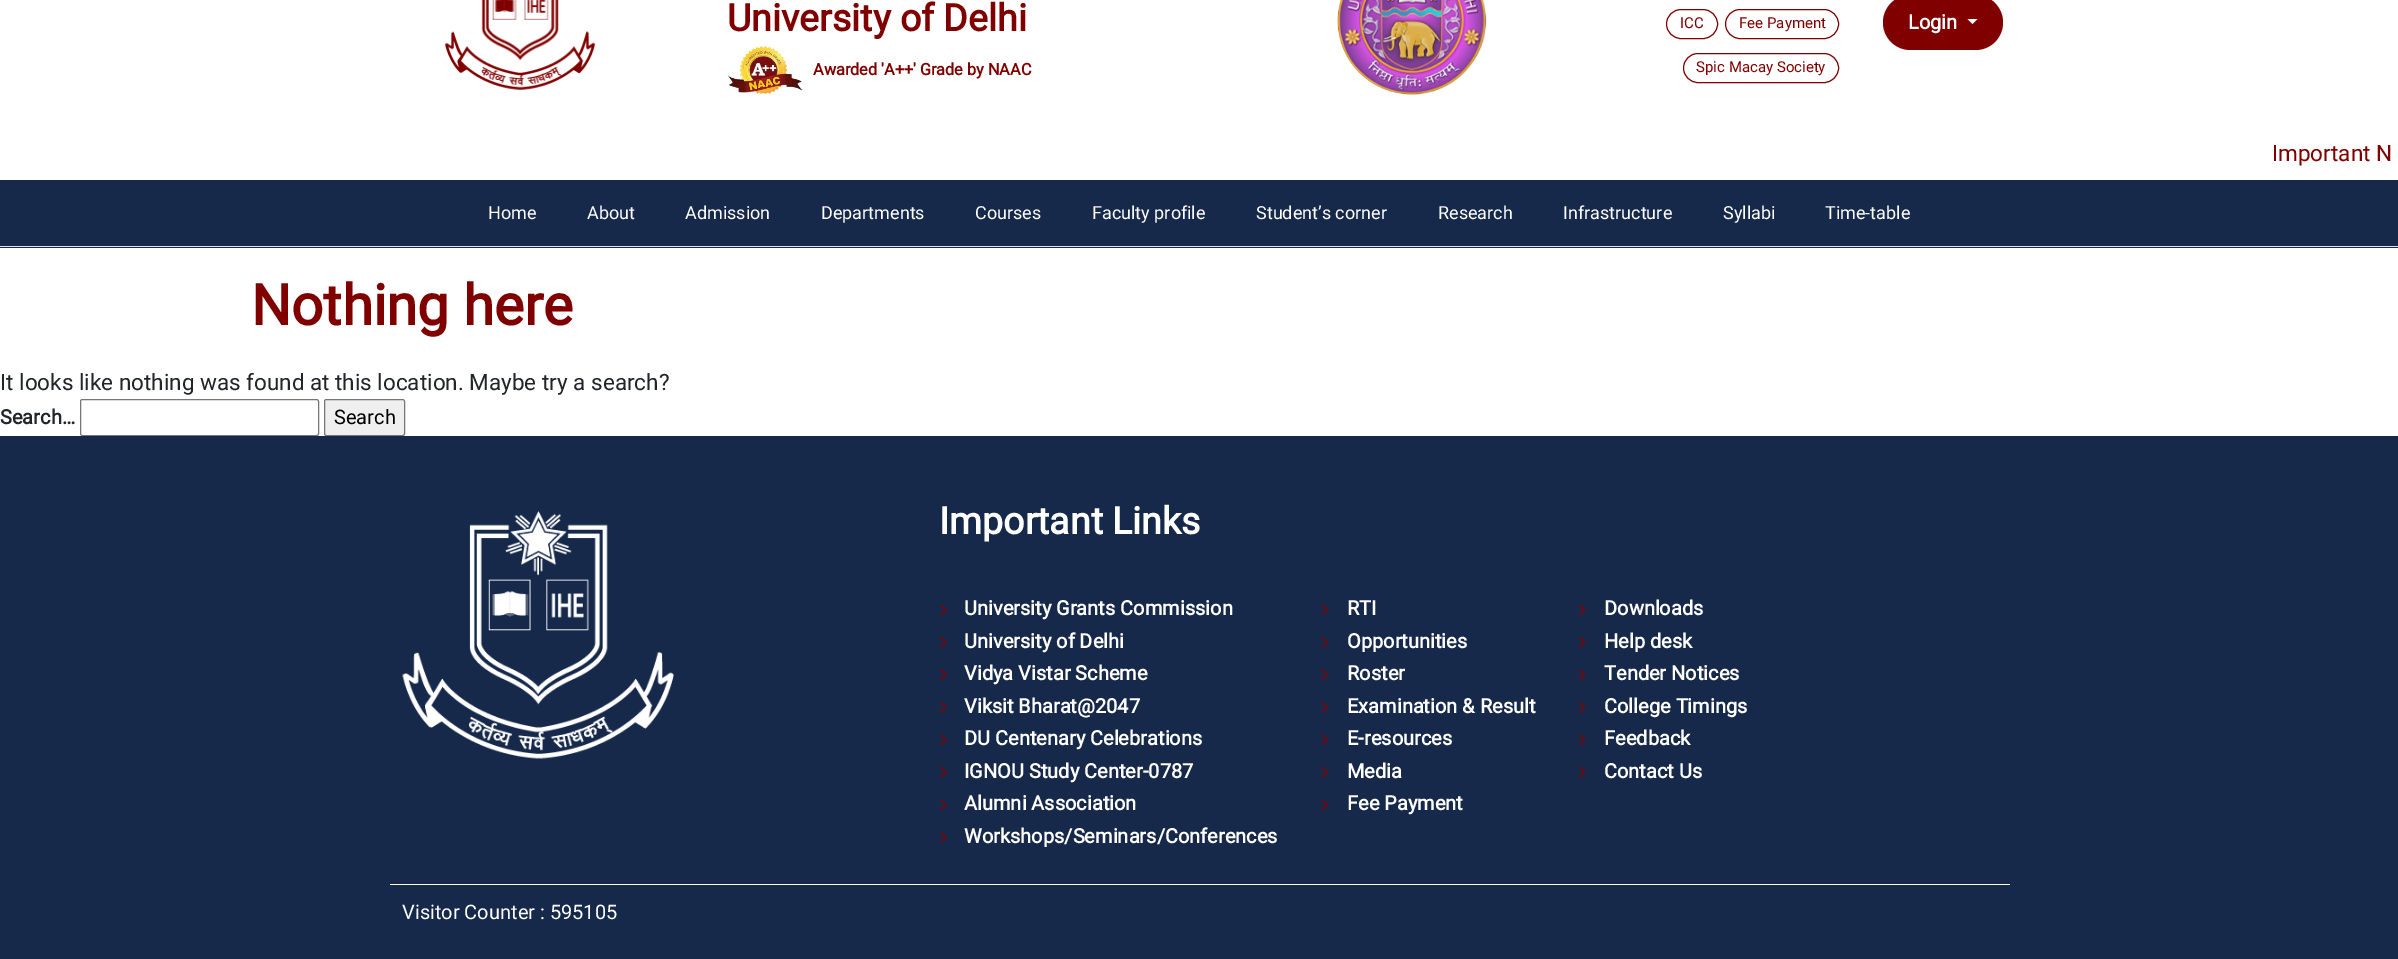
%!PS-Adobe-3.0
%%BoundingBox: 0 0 2398 959
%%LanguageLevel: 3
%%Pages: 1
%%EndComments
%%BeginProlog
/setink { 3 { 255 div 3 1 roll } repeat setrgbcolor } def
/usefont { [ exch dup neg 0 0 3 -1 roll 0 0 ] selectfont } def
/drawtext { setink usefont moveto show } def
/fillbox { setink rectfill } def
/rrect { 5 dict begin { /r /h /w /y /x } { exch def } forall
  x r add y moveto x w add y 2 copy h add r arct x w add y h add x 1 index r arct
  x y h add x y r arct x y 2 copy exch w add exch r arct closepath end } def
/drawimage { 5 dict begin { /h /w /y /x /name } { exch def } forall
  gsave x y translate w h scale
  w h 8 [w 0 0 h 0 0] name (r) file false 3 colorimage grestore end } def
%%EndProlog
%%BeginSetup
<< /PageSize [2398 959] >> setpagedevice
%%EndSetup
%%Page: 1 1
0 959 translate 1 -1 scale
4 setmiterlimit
0 0 2398 959 255 255 255 fillbox
(assets/img1.rgb) 445 0 150 90 drawimage
(University of Delhi) 727 31 /Roboto-Bold 37.5 128 0 0 drawtext
(assets/img2.rgb) 728 46 75 48 drawimage
(Awarded 'A++' Grade by NAAC) 813 75 /Roboto-Bold 16.25 128 0 0 drawtext
(assets/img3.rgb) 1337 0 150 95 drawimage
1666.5 9.5 51 29 14.5 rrect stroke
(ICC) 1680 28 /Roboto-Regular 15 128 0 0 drawtext
1725.5 9.5 113 29 14.5 rrect stroke
(Fee Payment) 1739 28 /Roboto-Regular 15 128 0 0 drawtext
1683.5 53.5 155 29 14.5 rrect stroke
(Spic Macay Society) 1696 72 /Roboto-Regular 15 128 0 0 drawtext
1883 -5 120 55 27.5 rrect fill
(Login) 1908 29 /Roboto-Bold 20 255 255 255 drawtext
1967.5 19 moveto 1977.5 19 lineto 1972.5 24 lineto closepath fill
(Important N) 2272 161 /Roboto-Regular 22.5 128 0 0 drawtext
0 180 2398 68 22 41 74 fillbox
0 246 2398 1 222 226 230 fillbox
(Home) 488 219 /Roboto-Regular 18 255 255 255 drawtext
(About) 587 219 /Roboto-Regular 18 255 255 255 drawtext
(Admission) 685 219 /Roboto-Regular 18 255 255 255 drawtext
(Departments) 821 219 /Roboto-Regular 18 255 255 255 drawtext
(Courses) 975 219 /Roboto-Regular 18 255 255 255 drawtext
(Faculty profile) 1092 219 /Roboto-Regular 18 255 255 255 drawtext
(Student’s corner) 1256 219 /Roboto-Regular 18 255 255 255 drawtext
(Research) 1438 219 /Roboto-Regular 18 255 255 255 drawtext
(Infrastructure) 1563 219 /Roboto-Regular 18 255 255 255 drawtext
(Syllabi) 1723 219 /Roboto-Regular 18 255 255 255 drawtext
(Time-table) 1825 219 /Roboto-Regular 18 255 255 255 drawtext
(Nothing here) 251 325 /Roboto-Bold 56.25 128 0 0 drawtext
(It looks like nothing was found at this location. Maybe try a search?) 0 390 /Roboto-Regular 22.5 33 37 41 drawtext
(Search…) 0 424 /Roboto-Bold 20 33 37 41 drawtext
118 118 118 setink
80.5 399.5 238 36 2 rrect stroke
239 239 239 setink
324.5 399.5 80 36 2 rrect gsave fill grestore
118 118 118 setink
stroke
(Search) 334 424 /Roboto-Regular 20 0 0 0 drawtext
0 436 2398 523 22 41 74 fillbox
(assets/img4.rgb) 402 511 272 248 drawimage
(Important Links) 939 534 /Roboto-Bold 37.5 255 255 255 drawtext
(assets/img5.rgb) 940 604 7 12 drawimage
(University Grants Commission) 964 615 /Roboto-Bold 20 255 255 255 drawtext
(assets/img6.rgb) 940 636 7 12 drawimage
(University of Delhi) 964 648 /Roboto-Bold 20 255 255 255 drawtext
(assets/img5.rgb) 940 669 7 12 drawimage
(Vidya Vistar Scheme) 964 680 /Roboto-Bold 20 255 255 255 drawtext
(assets/img6.rgb) 940 701 7 12 drawimage
(Viksit Bharat@2047) 964 713 /Roboto-Bold 20 255 255 255 drawtext
(assets/img5.rgb) 940 734 7 12 drawimage
(DU Centenary Celebrations) 964 745 /Roboto-Bold 20 255 255 255 drawtext
(assets/img6.rgb) 940 766 7 12 drawimage
(IGNOU Study Center-0787) 964 778 /Roboto-Bold 20 255 255 255 drawtext
(assets/img5.rgb) 940 799 7 12 drawimage
(Alumni Association) 964 810 /Roboto-Bold 20 255 255 255 drawtext
(assets/img6.rgb) 940 831 7 12 drawimage
(Workshops/Seminars/Conferences) 964 843 /Roboto-Bold 20 255 255 255 drawtext
(assets/img7.rgb) 1321 604 7 12 drawimage
(RTI) 1347 615 /Roboto-Bold 20 255 255 255 drawtext
(assets/img8.rgb) 1321 636 7 12 drawimage
(Opportunities) 1347 648 /Roboto-Bold 20 255 255 255 drawtext
(assets/img7.rgb) 1321 669 7 12 drawimage
(Roster) 1347 680 /Roboto-Bold 20 255 255 255 drawtext
(assets/img8.rgb) 1321 701 7 12 drawimage
(Examination & Result) 1347 713 /Roboto-Bold 20 255 255 255 drawtext
(assets/img7.rgb) 1321 734 7 12 drawimage
(E-resources) 1347 745 /Roboto-Bold 20 255 255 255 drawtext
(assets/img8.rgb) 1321 766 7 12 drawimage
(Media) 1347 778 /Roboto-Bold 20 255 255 255 drawtext
(assets/img7.rgb) 1321 799 7 12 drawimage
(Fee Payment) 1347 810 /Roboto-Bold 20 255 255 255 drawtext
(assets/img9.rgb) 1579 604 7 12 drawimage
(Downloads) 1604 615 /Roboto-Bold 20 255 255 255 drawtext
(assets/img10.rgb) 1579 636 7 12 drawimage
(Help desk) 1604 648 /Roboto-Bold 20 255 255 255 drawtext
(assets/img9.rgb) 1579 669 7 12 drawimage
(Tender Notices) 1604 680 /Roboto-Bold 20 255 255 255 drawtext
(assets/img10.rgb) 1579 701 7 12 drawimage
(College Timings) 1604 713 /Roboto-Bold 20 255 255 255 drawtext
(assets/img9.rgb) 1579 734 7 12 drawimage
(Feedback) 1604 745 /Roboto-Bold 20 255 255 255 drawtext
(assets/img10.rgb) 1579 766 7 12 drawimage
(Contact Us) 1604 778 /Roboto-Bold 20 255 255 255 drawtext
390 884 1620 1 255 255 255 fillbox
(Visitor Counter : 595105) 402 919 /Roboto-Regular 20 255 255 255 drawtext
showpage
%%EOF
